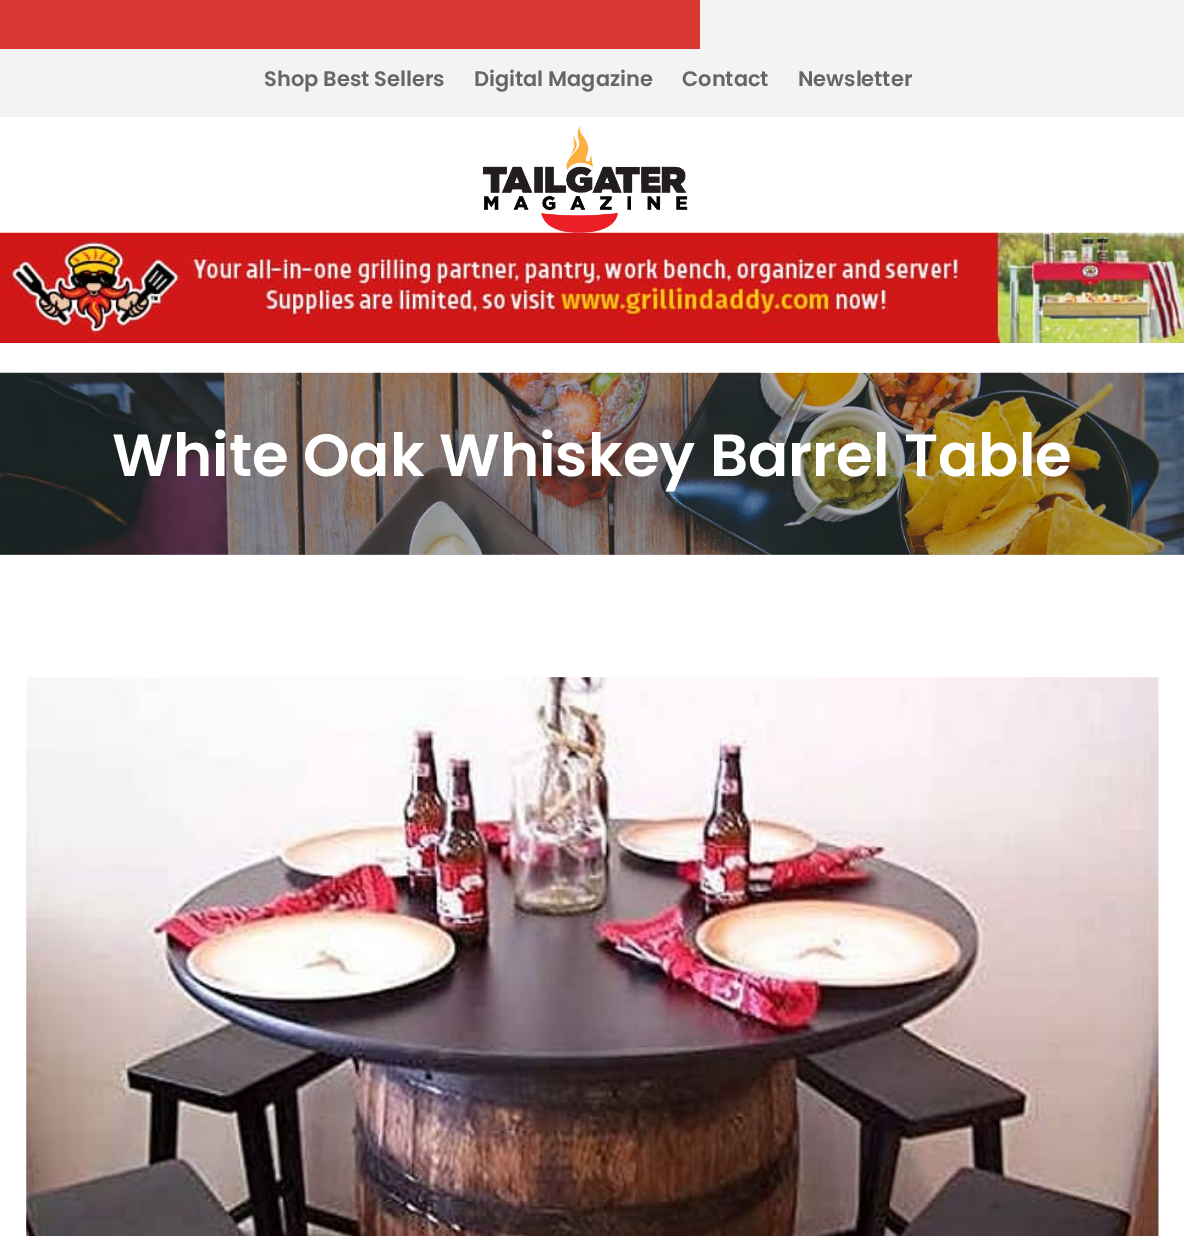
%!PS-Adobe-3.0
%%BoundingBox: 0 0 1184 1236
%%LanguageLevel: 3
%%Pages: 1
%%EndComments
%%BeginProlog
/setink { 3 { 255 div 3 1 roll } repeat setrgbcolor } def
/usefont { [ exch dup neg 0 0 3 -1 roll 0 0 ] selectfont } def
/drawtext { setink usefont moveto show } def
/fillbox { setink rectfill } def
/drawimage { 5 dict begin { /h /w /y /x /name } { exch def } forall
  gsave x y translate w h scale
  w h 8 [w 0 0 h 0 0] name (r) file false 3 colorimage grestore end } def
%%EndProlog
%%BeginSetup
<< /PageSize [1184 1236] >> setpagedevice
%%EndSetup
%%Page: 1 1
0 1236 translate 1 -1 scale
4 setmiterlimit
0 0 1184 1236 255 255 255 fillbox
0 0 1184 117 243 243 243 fillbox
0 0 700 49 218 55 50 fillbox
(Shop Best Sellers) 264 86 /Poppins-SemiBold 21 102 102 102 drawtext
(Digital Magazine) 474 86 /Poppins-SemiBold 21 102 102 102 drawtext
(Contact) 682 86 /Poppins-SemiBold 21 102 102 102 drawtext
(Newsletter) 798 86 /Poppins-SemiBold 21 102 102 102 drawtext
(assets/img2.rgb) 0 232 1184 111 drawimage
(assets/img1.rgb) 483 126 205 107 drawimage
(assets/img3.rgb) 0 372 1184 183 drawimage
(White Oak Whiskey Barrel Table) 112 476 /Poppins-SemiBold 59.5 255 255 255 drawtext
(assets/img4.rgb) 26 677 1133 559 drawimage
showpage
%%EOF
